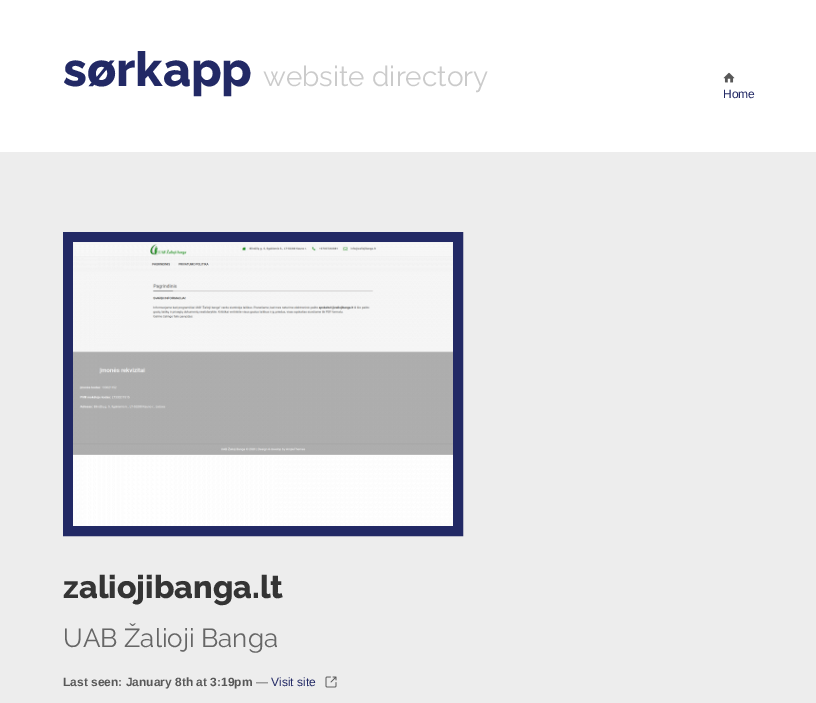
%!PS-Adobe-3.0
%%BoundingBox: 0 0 816 703
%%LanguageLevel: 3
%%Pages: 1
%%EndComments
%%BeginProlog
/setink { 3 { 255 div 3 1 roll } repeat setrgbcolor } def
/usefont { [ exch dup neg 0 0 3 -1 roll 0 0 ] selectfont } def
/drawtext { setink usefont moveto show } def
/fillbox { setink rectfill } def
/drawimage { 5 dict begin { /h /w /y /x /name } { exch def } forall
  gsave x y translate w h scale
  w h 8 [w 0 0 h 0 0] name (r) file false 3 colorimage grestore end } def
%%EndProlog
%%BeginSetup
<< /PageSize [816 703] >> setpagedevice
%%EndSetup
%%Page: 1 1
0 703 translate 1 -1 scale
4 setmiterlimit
0 0 816 703 237 237 237 fillbox
0 0 816 152 255 255 255 fillbox
(sørkapp) 63 86 /Raleway-ExtraBold 48 34 41 101 drawtext
(website directory) 263 86 /Raleway-Regular 28 203 203 203 drawtext
(assets/img1.rgb) 723 72 12 11 drawimage
(Home) 723 98 /LiberationSans-Regular 12 34 41 101 drawtext
10 setlinewidth
68 237 390 294 rectstroke
(assets/img2.rgb) 73 242 380 284 drawimage
(zaliojibanga.lt) 63 598 /Raleway-ExtraBold 32 52 52 52 drawtext
(UAB Žalioji Banga) 63 647 /Raleway-Regular 26 102 102 102 drawtext
(Last seen: January 8th at 3:19pm) 63 686 /LiberationSans-Bold 12 88 88 88 drawtext
(—) 256 686 /LiberationSans-Regular 12 88 88 88 drawtext
(Visit site) 271 686 /LiberationSans-Regular 12 34 41 101 drawtext
(assets/img3.rgb) 325 676 12 12 drawimage
showpage
%%EOF
